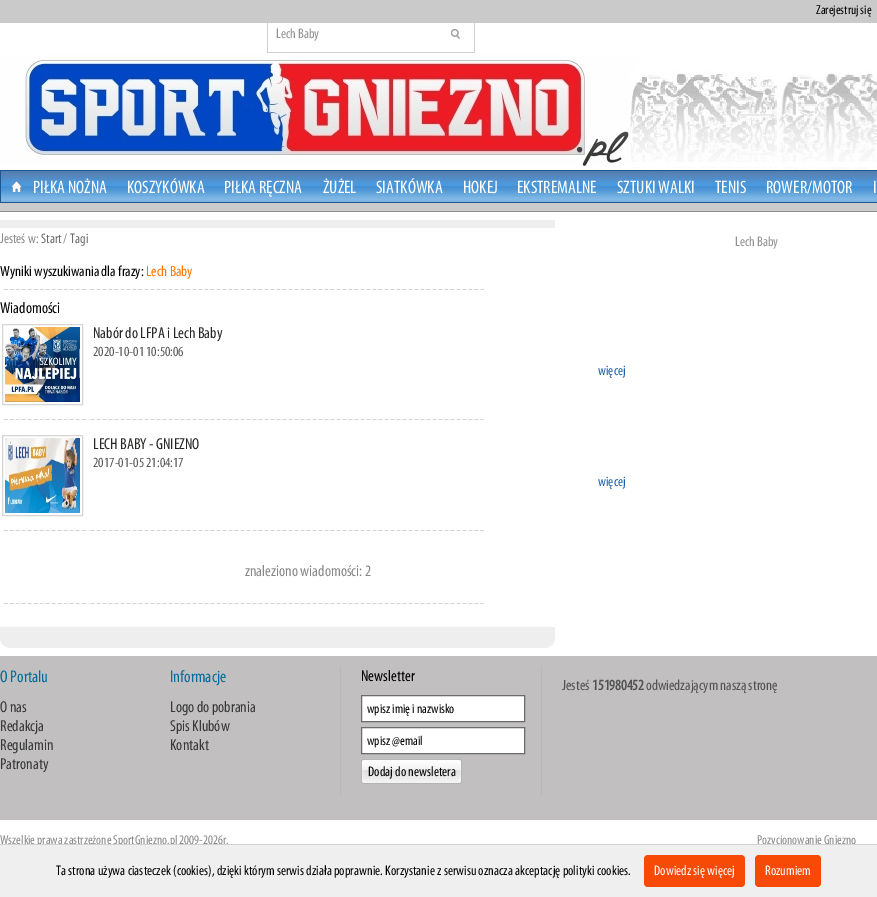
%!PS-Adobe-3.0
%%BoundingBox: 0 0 877 897
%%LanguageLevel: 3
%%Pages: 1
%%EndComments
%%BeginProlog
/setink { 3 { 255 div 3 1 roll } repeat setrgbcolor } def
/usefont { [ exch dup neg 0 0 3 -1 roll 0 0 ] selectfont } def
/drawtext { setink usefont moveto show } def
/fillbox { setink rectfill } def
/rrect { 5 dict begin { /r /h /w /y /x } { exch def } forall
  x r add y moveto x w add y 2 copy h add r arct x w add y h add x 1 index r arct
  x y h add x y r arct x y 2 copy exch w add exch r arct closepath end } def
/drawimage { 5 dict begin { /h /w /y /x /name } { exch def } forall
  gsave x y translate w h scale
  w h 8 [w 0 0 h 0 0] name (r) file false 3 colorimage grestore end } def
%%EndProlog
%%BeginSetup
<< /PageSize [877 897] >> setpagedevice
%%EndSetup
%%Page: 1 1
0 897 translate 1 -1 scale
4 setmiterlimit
0 0 877 897 255 255 255 fillbox
0 0 877 23 202 202 202 fillbox
(Zarejestruj się) 816 14 /Myriad-Regular 13 0 0 0 drawtext
(assets/img1.rgb) 267 23 208 30 drawimage
(Lech Baby) 276 38 /Myriad-Regular 14 146 144 144 drawtext
(assets/img2.rgb) 0 55 877 115 drawimage
0 203 877 8 202 202 202 fillbox
0 211 877 1 143 142 142 fillbox
(assets/img3.rgb) 1 170 876 33 drawimage
0 170 1 33 30 86 143 fillbox
(assets/img4.rgb) 11 181 11 11 drawimage
(PIŁKA NOŻNA) 33 193 /Myriad-Regular 18 255 255 255 drawtext
(KOSZYKÓWKA) 127 193 /Myriad-Regular 18 255 255 255 drawtext
(PIŁKA RĘCZNA) 224 193 /Myriad-Regular 18 255 255 255 drawtext
(ŻUŻEL) 323 193 /Myriad-Regular 18 255 255 255 drawtext
(SIATKÓWKA) 376 193 /Myriad-Regular 18 255 255 255 drawtext
(HOKEJ) 463 193 /Myriad-Regular 18 255 255 255 drawtext
(EKSTREMALNE) 517 193 /Myriad-Regular 18 255 255 255 drawtext
(SZTUKI WALKI) 617 193 /Myriad-Regular 18 255 255 255 drawtext
(TENIS) 715 193 /Myriad-Regular 18 255 255 255 drawtext
(ROWER/MOTOR) 766 193 /Myriad-Regular 18 255 255 255 drawtext
(I) 873 193 /Myriad-Regular 18 255 255 255 drawtext
0 220 555 8 238 238 238 fillbox
(Jesteś w:) 0 243 /Myriad-Regular 14 136 136 136 drawtext
(Start) 41 243 /Myriad-Regular 14 107 106 106 drawtext
(/) 63 243 /Myriad-Regular 14 136 136 136 drawtext
(Tagi) 70 243 /Myriad-Regular 14 107 106 106 drawtext
(Wyniki wyszukiwania dla frazy:) 0 276 /Myriad-Regular 15 0 0 0 drawtext
(Lech Baby) 146 276 /Myriad-Regular 15 255 116 0 drawtext
(assets/img5.rgb) 3 289 481 1 drawimage
(Wiadomości) 0 313 /Myriad-Regular 16 0 0 0 drawtext
213 213 213 setink
2.5 324.5 80 80 rectstroke
(assets/img6.rgb) 5 327 75 75 drawimage
(Nabór do LFPA i Lech Baby) 93 338 /Myriad-Regular 16 38 38 37 drawtext
(2020-10-01 10:50:06) 93 356 /Myriad-Regular 14 91 89 88 drawtext
(więcej) 598 375 /Myriad-Regular 14 26 93 169 drawtext
(assets/img5.rgb) 3 419 481 1 drawimage
213 213 213 setink
2.5 435.5 80 80 rectstroke
(assets/img7.rgb) 5 438 75 75 drawimage
(LECH BABY - GNIEZNO) 93 449 /Myriad-Regular 16 38 38 37 drawtext
(2017-01-05 21:04:17) 93 467 /Myriad-Regular 14 91 89 88 drawtext
(więcej) 598 486 /Myriad-Regular 14 26 93 169 drawtext
(assets/img5.rgb) 3 530 481 1 drawimage
(znaleziono wiadomości: 2) 245 576 /Myriad-Regular 16 136 136 136 drawtext
(assets/img5.rgb) 3 603 481 1 drawimage
(assets/img8.rgb) 0 627 555 21 drawimage
(Lech Baby) 735 246 /Myriad-Regular 14 146 144 144 drawtext
0 656 877 164 193 191 191 fillbox
(O Portalu) 0 682 /Myriad-Regular 17 1 109 159 drawtext
(O nas) 0 712 /Myriad-Regular 16 56 56 56 drawtext
(Redakcja) 0 731 /Myriad-Regular 16 56 56 56 drawtext
(Regulamin) 0 750 /Myriad-Regular 16 56 56 56 drawtext
(Patronaty) 0 769 /Myriad-Regular 16 56 56 56 drawtext
(Informacje) 170 682 /Myriad-Regular 17 1 109 159 drawtext
(Logo do pobrania) 170 712 /Myriad-Regular 16 56 56 56 drawtext
(Spis Klubów) 170 731 /Myriad-Regular 16 56 56 56 drawtext
(Kontakt) 170 750 /Myriad-Regular 16 56 56 56 drawtext
340 666 1 130 185 183 183 fillbox
(Newsletter) 361 681 /Myriad-Regular 16 0 0 0 drawtext
255 255 255 setink
361.5 695.5 moveto 524.5 695.5 lineto 524.5 721.5 lineto 361.5 721.5 lineto closepath gsave fill grestore
106 108 109 setink
stroke
(wpisz imię i nazwisko) 367 713 /Myriad-Regular 13.25 0 0 0 drawtext
255 255 255 setink
361.5 727.5 moveto 524.5 727.5 lineto 524.5 753.5 lineto 361.5 753.5 lineto closepath gsave fill grestore
106 108 109 setink
stroke
(wpisz @email) 367 745 /Myriad-Regular 13.25 0 0 0 drawtext
(assets/img9.rgb) 361 759 101 25 drawimage
(Dodaj do newsletera) 368 776 /Myriad-Regular 14 0 0 0 drawtext
541 666 1 130 185 183 183 fillbox
(Jesteś) 562 690 /Myriad-Regular 15 82 81 81 drawtext
(151980452) 592 690 /Myriad-Bold 15 82 81 81 drawtext
(odwiedzającym naszą stronę) 646 690 /Myriad-Regular 15 82 81 81 drawtext
(Wszelkie prawa zastrzeżone SportGniezno.pl 2009-2026r.) 0 844 /Myriad-Regular 13 136 136 136 drawtext
(Pozycjonowanie Gniezno) 757 844 /Myriad-Regular 13 136 136 136 drawtext
0 845 877 52 239 239 239 fillbox
0 844 877 1 211 208 208 fillbox
(Ta strona używa ciasteczek \(cookies\), dzięki którym serwis działa poprawnie. Korzystanie z serwisu oznacza akceptację polityki cookies.) 56 875 /Myriad-Regular 14 0 0 0 drawtext
247 74 6 setink
644 855 101 32 4 rrect fill
(Dowiedz się więcej) 654 875 /Myriad-Regular 14 255 255 255 drawtext
247 74 6 setink
755 855 66 32 4 rrect fill
(Rozumiem) 765 875 /Myriad-Regular 14 255 255 255 drawtext
showpage
%%EOF
